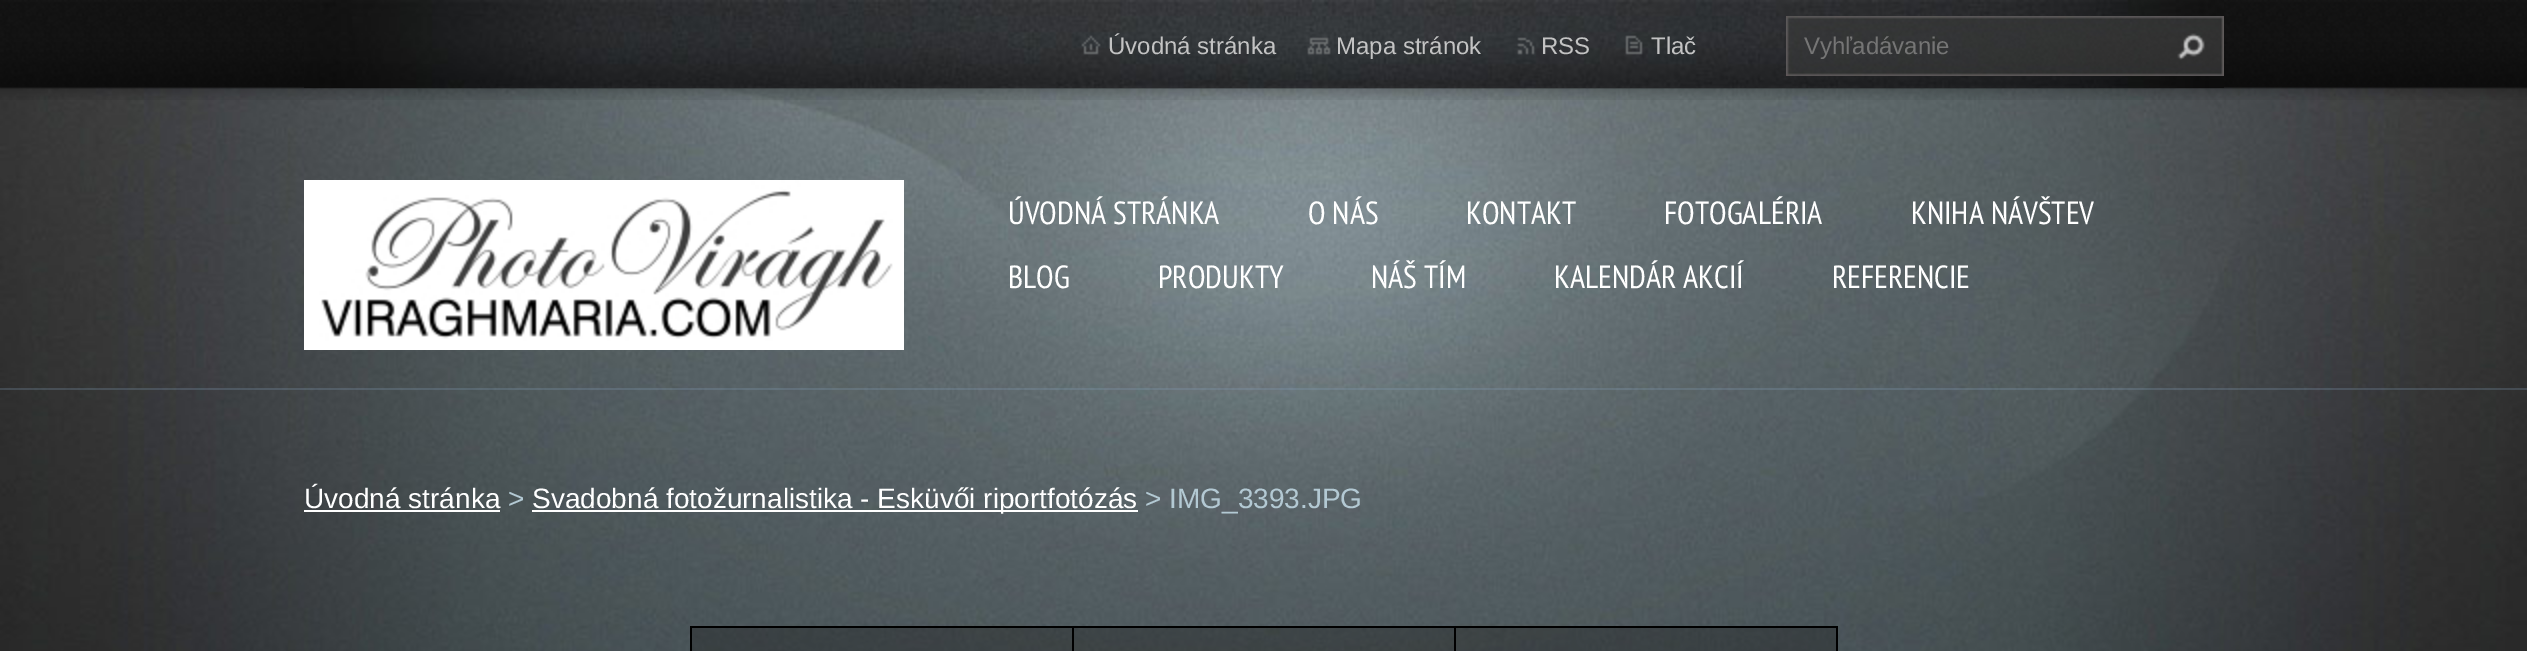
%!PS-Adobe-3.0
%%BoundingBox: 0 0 2527 651
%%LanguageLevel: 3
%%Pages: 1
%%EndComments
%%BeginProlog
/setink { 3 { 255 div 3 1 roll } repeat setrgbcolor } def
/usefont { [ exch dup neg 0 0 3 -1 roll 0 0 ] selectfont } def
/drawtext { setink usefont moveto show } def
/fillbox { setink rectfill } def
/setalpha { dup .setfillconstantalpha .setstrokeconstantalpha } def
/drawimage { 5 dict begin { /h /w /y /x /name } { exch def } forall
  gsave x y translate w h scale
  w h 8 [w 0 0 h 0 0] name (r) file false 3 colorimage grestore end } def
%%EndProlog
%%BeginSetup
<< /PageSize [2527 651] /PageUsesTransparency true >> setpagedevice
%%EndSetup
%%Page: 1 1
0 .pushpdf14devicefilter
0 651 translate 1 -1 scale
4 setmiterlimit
0 0 2527 651 255 255 255 fillbox
(assets/img1.rgb) 0 87 2527 564 drawimage
0.26 setalpha
0 388 2527 2 131 158 185 fillbox
1 setalpha
(assets/img2.rgb) 0 0 2527 100 drawimage
(assets/img3.rgb) 304 0 1920 88 drawimage
(assets/img4.rgb) 1081 35 20 20 drawimage
(Úvodná stránka) 1108 54 /LiberationSans-Regular 24 195 195 195 drawtext
(assets/img5.rgb) 1307 37 24 18 drawimage
(Mapa stránok) 1336 54 /LiberationSans-Regular 24 195 195 195 drawtext
(assets/img6.rgb) 1517 37 18 18 drawimage
(RSS) 1541 54 /LiberationSans-Regular 24 195 195 195 drawtext
(assets/img7.rgb) 1625 35 18 20 drawimage
(Tlač) 1651 54 /LiberationSans-Regular 24 195 195 195 drawtext
(assets/img8.rgb) 1786 16 438 60 drawimage
(Vyhľadávanie) 1804 54 /LiberationSans-Regular 24 117 117 117 drawtext
(assets/img9.rgb) 2177 33 28 27 drawimage
(assets/img10.rgb) 304 180 600 170 drawimage
(ÚVODNÁ STRÁNKA) 1008 224 /PTSansNarrow-Regular 32 255 255 255 drawtext
(O NÁS) 1308 224 /PTSansNarrow-Regular 32 255 255 255 drawtext
(KONTAKT) 1466 224 /PTSansNarrow-Regular 32 255 255 255 drawtext
(FOTOGALÉRIA) 1664 224 /PTSansNarrow-Regular 32 255 255 255 drawtext
(KNIHA NÁVŠTEV) 1911 224 /PTSansNarrow-Regular 32 255 255 255 drawtext
(BLOG) 1008 288 /PTSansNarrow-Regular 32 255 255 255 drawtext
(PRODUKTY) 1158 288 /PTSansNarrow-Regular 32 255 255 255 drawtext
(NÁŠ TÍM) 1371 288 /PTSansNarrow-Regular 32 255 255 255 drawtext
(KALENDÁR AKCIÍ) 1554 288 /PTSansNarrow-Regular 32 255 255 255 drawtext
(REFERENCIE) 1832 288 /PTSansNarrow-Regular 32 255 255 255 drawtext
(Úvodná stránka) 304 508 /LiberationSans-Regular 28 255 255 255 drawtext
304 510 196 2 255 255 255 fillbox
(>) 508 508 /LiberationSans-Regular 28 179 201 211 drawtext
532 510 606 2 255 255 255 fillbox
(Svadobná fotožurnalistika - Esküvői riportfotózás) 532 508 /LiberationSans-Regular 28 255 255 255 drawtext
(> IMG_3393.JPG) 1145 508 /LiberationSans-Regular 28 179 201 211 drawtext
690 626 1148 2 0 0 0 fillbox
690 626 2 25 0 0 0 fillbox
0.36 setalpha
692 628 380 23 28 28 28 fillbox
1 setalpha
1072 626 2 25 0 0 0 fillbox
0.36 setalpha
1074 628 380 23 28 28 28 fillbox
1 setalpha
1454 626 2 25 0 0 0 fillbox
0.36 setalpha
1456 628 380 23 28 28 28 fillbox
1 setalpha
1836 626 2 25 0 0 0 fillbox
.poppdf14devicefilter showpage
%%EOF
